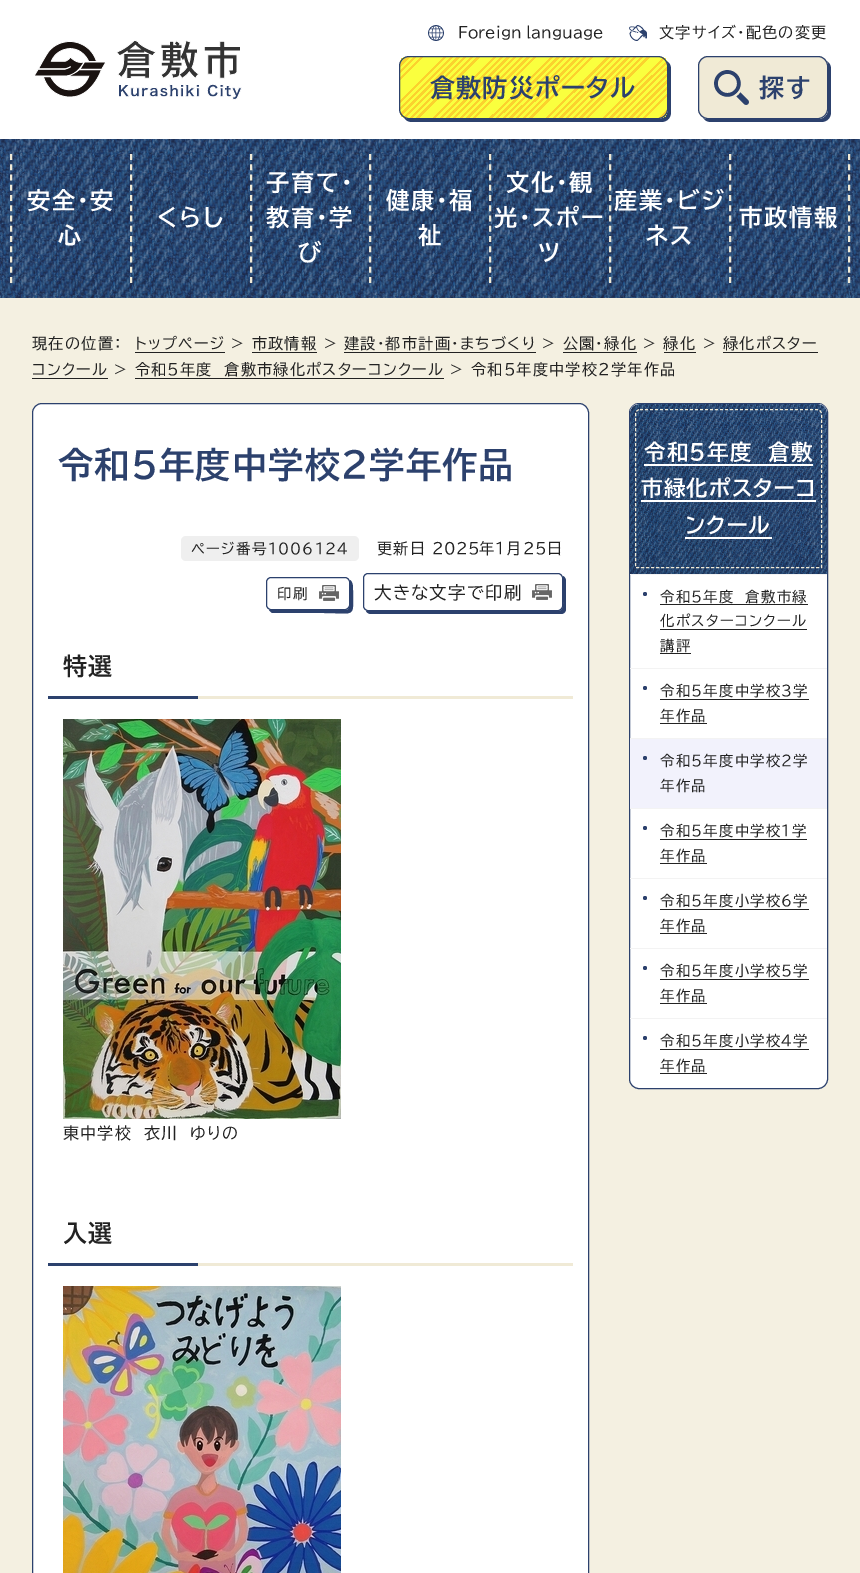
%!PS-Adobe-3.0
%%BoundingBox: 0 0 860 1573
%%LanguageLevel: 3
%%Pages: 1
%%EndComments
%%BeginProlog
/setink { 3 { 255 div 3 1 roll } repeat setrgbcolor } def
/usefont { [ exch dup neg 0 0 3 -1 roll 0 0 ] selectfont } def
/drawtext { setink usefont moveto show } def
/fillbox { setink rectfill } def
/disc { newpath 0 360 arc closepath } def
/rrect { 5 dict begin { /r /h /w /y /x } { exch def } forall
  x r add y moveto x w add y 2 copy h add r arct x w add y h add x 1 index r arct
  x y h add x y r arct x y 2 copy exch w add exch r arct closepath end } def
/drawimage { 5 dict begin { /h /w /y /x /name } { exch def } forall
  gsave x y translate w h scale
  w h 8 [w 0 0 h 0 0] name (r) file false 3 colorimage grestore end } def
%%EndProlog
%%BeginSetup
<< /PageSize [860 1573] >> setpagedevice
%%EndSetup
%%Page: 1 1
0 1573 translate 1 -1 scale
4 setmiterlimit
0 0 860 1573 244 240 225 fillbox
0 0 860 139 255 255 255 fillbox
(assets/img1.rgb) 34 40 208 60 drawimage
(assets/img2.rgb) 428 25 16 16 drawimage
(Foreign language) 458 38 /BIZUDPGothic-Regular 15.2 34 34 34 drawtext
(assets/img3.rgb) 629 25 18 16 drawimage
659 38 moveto 1.2 0 (文字サイズ・配色の変更) ashow
44 65 109 setink
404 117 moveto 405 120 408 122 412 122 curveto 661 122 lineto 667 122 671 118 671 112 curveto 671 69 lineto 671 65 669 62 666 61 curveto 667 62 668 64 668 66 curveto 668 109 lineto 668 115 664 119 658 119 curveto 409 119 lineto 407 119 405 118 404 117 curveto closepath fill
gsave
399 56 269 63 10 rrect clip newpath
gsave 400 57 moveto 667 57 lineto 667 118 lineto 400 118 lineto closepath clip newpath
<< /ShadingType 2 /ColorSpace /DeviceRGB /Coords [452 5.5 618 172] /Extend [true true] /Function << /FunctionType 3 /Domain [0 1] /Functions [<< /FunctionType 2 /Domain [0 1] /C0 [0.984 0.824 0.18] /C1 [0.984 0.824 0.18] /N 1 >> << /FunctionType 2 /Domain [0 1] /C0 [0.98 1 0.243] /C1 [0.98 1 0.243] /N 1 >> << /FunctionType 2 /Domain [0 1] /C0 [0.984 0.824 0.18] /C1 [0.984 0.824 0.18] /N 1 >> << /FunctionType 2 /Domain [0 1] /C0 [0.98 1 0.243] /C1 [0.98 1 0.243] /N 1 >> << /FunctionType 2 /Domain [0 1] /C0 [0.984 0.824 0.18] /C1 [0.984 0.824 0.18] /N 1 >> << /FunctionType 2 /Domain [0 1] /C0 [0.98 1 0.243] /C1 [0.98 1 0.243] /N 1 >> << /FunctionType 2 /Domain [0 1] /C0 [0.984 0.824 0.18] /C1 [0.984 0.824 0.18] /N 1 >> << /FunctionType 2 /Domain [0 1] /C0 [0.98 1 0.243] /C1 [0.98 1 0.243] /N 1 >> << /FunctionType 2 /Domain [0 1] /C0 [0.98 1 0.243] /C1 [0.98 1 0.243] /N 1 >> << /FunctionType 2 /Domain [0 1] /C0 [0.98 1 0.243] /C1 [0.98 1 0.243] /N 1 >> << /FunctionType 2 /Domain [0 1] /C0 [0.984 0.824 0.18] /C1 [0.984 0.824 0.18] /N 1 >> << /FunctionType 2 /Domain [0 1] /C0 [0.98 1 0.243] /C1 [0.98 1 0.243] /N 1 >> << /FunctionType 2 /Domain [0 1] /C0 [0.984 0.824 0.18] /C1 [0.984 0.824 0.18] /N 1 >> << /FunctionType 2 /Domain [0 1] /C0 [0.98 1 0.243] /C1 [0.98 1 0.243] /N 1 >> << /FunctionType 2 /Domain [0 1] /C0 [0.984 0.824 0.18] /C1 [0.984 0.824 0.18] /N 1 >> << /FunctionType 2 /Domain [0 1] /C0 [0.98 1 0.243] /C1 [0.98 1 0.243] /N 1 >> << /FunctionType 2 /Domain [0 1] /C0 [0.984 0.824 0.18] /C1 [0.984 0.824 0.18] /N 1 >> << /FunctionType 2 /Domain [0 1] /C0 [0.98 1 0.243] /C1 [0.98 1 0.243] /N 1 >> << /FunctionType 2 /Domain [0 1] /C0 [0.984 0.824 0.18] /C1 [0.984 0.824 0.18] /N 1 >> << /FunctionType 2 /Domain [0 1] /C0 [0.98 1 0.243] /C1 [0.98 1 0.243] /N 1 >> << /FunctionType 2 /Domain [0 1] /C0 [0.984 0.824 0.18] /C1 [0.984 0.824 0.18] /N 1 >> << /FunctionType 2 /Domain [0 1] /C0 [0.98 1 0.243] /C1 [0.98 1 0.243] /N 1 >> << /FunctionType 2 /Domain [0 1] /C0 [0.98 1 0.243] /C1 [0.98 1 0.243] /N 1 >> << /FunctionType 2 /Domain [0 1] /C0 [0.984 0.824 0.18] /C1 [0.984 0.824 0.18] /N 1 >> << /FunctionType 2 /Domain [0 1] /C0 [0.98 1 0.243] /C1 [0.98 1 0.243] /N 1 >> << /FunctionType 2 /Domain [0 1] /C0 [0.984 0.824 0.18] /C1 [0.984 0.824 0.18] /N 1 >> << /FunctionType 2 /Domain [0 1] /C0 [0.98 1 0.243] /C1 [0.98 1 0.243] /N 1 >> << /FunctionType 2 /Domain [0 1] /C0 [0.984 0.824 0.18] /C1 [0.984 0.824 0.18] /N 1 >> << /FunctionType 2 /Domain [0 1] /C0 [0.98 1 0.243] /C1 [0.98 1 0.243] /N 1 >> << /FunctionType 2 /Domain [0 1] /C0 [0.984 0.824 0.18] /C1 [0.984 0.824 0.18] /N 1 >> << /FunctionType 2 /Domain [0 1] /C0 [0.98 1 0.243] /C1 [0.98 1 0.243] /N 1 >> << /FunctionType 2 /Domain [0 1] /C0 [0.984 0.824 0.18] /C1 [0.984 0.824 0.18] /N 1 >> << /FunctionType 2 /Domain [0 1] /C0 [0.98 1 0.243] /C1 [0.98 1 0.243] /N 1 >> << /FunctionType 2 /Domain [0 1] /C0 [0.984 0.824 0.18] /C1 [0.984 0.824 0.18] /N 1 >> << /FunctionType 2 /Domain [0 1] /C0 [0.98 1 0.243] /C1 [0.98 1 0.243] /N 1 >> << /FunctionType 2 /Domain [0 1] /C0 [0.984 0.824 0.18] /C1 [0.984 0.824 0.18] /N 1 >> << /FunctionType 2 /Domain [0 1] /C0 [0.98 1 0.243] /C1 [0.98 1 0.243] /N 1 >> << /FunctionType 2 /Domain [0 1] /C0 [0.98 1 0.243] /C1 [0.98 1 0.243] /N 1 >> << /FunctionType 2 /Domain [0 1] /C0 [0.984 0.824 0.18] /C1 [0.984 0.824 0.18] /N 1 >> << /FunctionType 2 /Domain [0 1] /C0 [0.98 1 0.243] /C1 [0.98 1 0.243] /N 1 >> << /FunctionType 2 /Domain [0 1] /C0 [0.984 0.824 0.18] /C1 [0.984 0.824 0.18] /N 1 >> << /FunctionType 2 /Domain [0 1] /C0 [0.98 1 0.243] /C1 [0.98 1 0.243] /N 1 >> << /FunctionType 2 /Domain [0 1] /C0 [0.984 0.824 0.18] /C1 [0.984 0.824 0.18] /N 1 >> << /FunctionType 2 /Domain [0 1] /C0 [0.98 1 0.243] /C1 [0.98 1 0.243] /N 1 >> << /FunctionType 2 /Domain [0 1] /C0 [0.984 0.824 0.18] /C1 [0.984 0.824 0.18] /N 1 >> << /FunctionType 2 /Domain [0 1] /C0 [0.98 1 0.243] /C1 [0.98 1 0.243] /N 1 >> << /FunctionType 2 /Domain [0 1] /C0 [0.984 0.824 0.18] /C1 [0.984 0.824 0.18] /N 1 >> << /FunctionType 2 /Domain [0 1] /C0 [0.98 1 0.243] /C1 [0.98 1 0.243] /N 1 >> << /FunctionType 2 /Domain [0 1] /C0 [0.984 0.824 0.18] /C1 [0.984 0.824 0.18] /N 1 >> << /FunctionType 2 /Domain [0 1] /C0 [0.98 1 0.243] /C1 [0.98 1 0.243] /N 1 >> << /FunctionType 2 /Domain [0 1] /C0 [0.984 0.824 0.18] /C1 [0.984 0.824 0.18] /N 1 >> << /FunctionType 2 /Domain [0 1] /C0 [0.98 1 0.243] /C1 [0.98 1 0.243] /N 1 >> << /FunctionType 2 /Domain [0 1] /C0 [0.98 1 0.243] /C1 [0.98 1 0.243] /N 1 >> << /FunctionType 2 /Domain [0 1] /C0 [0.984 0.824 0.18] /C1 [0.984 0.824 0.18] /N 1 >> << /FunctionType 2 /Domain [0 1] /C0 [0.98 1 0.243] /C1 [0.98 1 0.243] /N 1 >> << /FunctionType 2 /Domain [0 1] /C0 [0.984 0.824 0.18] /C1 [0.984 0.824 0.18] /N 1 >> << /FunctionType 2 /Domain [0 1] /C0 [0.98 1 0.243] /C1 [0.98 1 0.243] /N 1 >> << /FunctionType 2 /Domain [0 1] /C0 [0.984 0.824 0.18] /C1 [0.984 0.824 0.18] /N 1 >> << /FunctionType 2 /Domain [0 1] /C0 [0.98 1 0.243] /C1 [0.98 1 0.243] /N 1 >> << /FunctionType 2 /Domain [0 1] /C0 [0.984 0.824 0.18] /C1 [0.984 0.824 0.18] /N 1 >> << /FunctionType 2 /Domain [0 1] /C0 [0.98 1 0.243] /C1 [0.98 1 0.243] /N 1 >> << /FunctionType 2 /Domain [0 1] /C0 [0.984 0.824 0.18] /C1 [0.984 0.824 0.18] /N 1 >> << /FunctionType 2 /Domain [0 1] /C0 [0.98 1 0.243] /C1 [0.98 1 0.243] /N 1 >> << /FunctionType 2 /Domain [0 1] /C0 [0.984 0.824 0.18] /C1 [0.984 0.824 0.18] /N 1 >> << /FunctionType 2 /Domain [0 1] /C0 [0.98 1 0.243] /C1 [0.98 1 0.243] /N 1 >> << /FunctionType 2 /Domain [0 1] /C0 [0.984 0.824 0.18] /C1 [0.984 0.824 0.18] /N 1 >> << /FunctionType 2 /Domain [0 1] /C0 [0.98 1 0.243] /C1 [0.98 1 0.243] /N 1 >> << /FunctionType 2 /Domain [0 1] /C0 [0.98 1 0.243] /C1 [0.98 1 0.243] /N 1 >> << /FunctionType 2 /Domain [0 1] /C0 [0.984 0.824 0.18] /C1 [0.984 0.824 0.18] /N 1 >> << /FunctionType 2 /Domain [0 1] /C0 [0.98 1 0.243] /C1 [0.98 1 0.243] /N 1 >> << /FunctionType 2 /Domain [0 1] /C0 [0.984 0.824 0.18] /C1 [0.984 0.824 0.18] /N 1 >> << /FunctionType 2 /Domain [0 1] /C0 [0.98 1 0.243] /C1 [0.98 1 0.243] /N 1 >> << /FunctionType 2 /Domain [0 1] /C0 [0.984 0.824 0.18] /C1 [0.984 0.824 0.18] /N 1 >> << /FunctionType 2 /Domain [0 1] /C0 [0.98 1 0.243] /C1 [0.98 1 0.243] /N 1 >> << /FunctionType 2 /Domain [0 1] /C0 [0.984 0.824 0.18] /C1 [0.984 0.824 0.18] /N 1 >> << /FunctionType 2 /Domain [0 1] /C0 [0.98 1 0.243] /C1 [0.98 1 0.243] /N 1 >> << /FunctionType 2 /Domain [0 1] /C0 [0.984 0.824 0.18] /C1 [0.984 0.824 0.18] /N 1 >> << /FunctionType 2 /Domain [0 1] /C0 [0.98 1 0.243] /C1 [0.98 1 0.243] /N 1 >> << /FunctionType 2 /Domain [0 1] /C0 [0.984 0.824 0.18] /C1 [0.984 0.824 0.18] /N 1 >> << /FunctionType 2 /Domain [0 1] /C0 [0.98 1 0.243] /C1 [0.98 1 0.243] /N 1 >> << /FunctionType 2 /Domain [0 1] /C0 [0.984 0.824 0.18] /C1 [0.984 0.824 0.18] /N 1 >> << /FunctionType 2 /Domain [0 1] /C0 [0.98 1 0.243] /C1 [0.98 1 0.243] /N 1 >> << /FunctionType 2 /Domain [0 1] /C0 [0.98 1 0.243] /C1 [0.98 1 0.243] /N 1 >> << /FunctionType 2 /Domain [0 1] /C0 [0.984 0.824 0.18] /C1 [0.984 0.824 0.18] /N 1 >> << /FunctionType 2 /Domain [0 1] /C0 [0.98 1 0.243] /C1 [0.98 1 0.243] /N 1 >> << /FunctionType 2 /Domain [0 1] /C0 [0.984 0.824 0.18] /C1 [0.984 0.824 0.18] /N 1 >> << /FunctionType 2 /Domain [0 1] /C0 [0.98 1 0.243] /C1 [0.98 1 0.243] /N 1 >>] /Bounds [0.01 0.02 0.03 0.04 0.05 0.06 0.07 0.09 0.11 0.13 0.14 0.15 0.16 0.17 0.18 0.19 0.2 0.21 0.22 0.23 0.24 0.26 0.28 0.29 0.3 0.31 0.32 0.33 0.34 0.35 0.36 0.37 0.38 0.39 0.4 0.41 0.43 0.45 0.46 0.47 0.48 0.49 0.5 0.51 0.52 0.53 0.54 0.55 0.56 0.57 0.58 0.6 0.62 0.63 0.64 0.65 0.66 0.67 0.68 0.69 0.7 0.71 0.72 0.73 0.74 0.75 0.77 0.79 0.8 0.81 0.82 0.83 0.84 0.85 0.86 0.87 0.88 0.89 0.9 0.91 0.92 0.94 0.96 0.97 0.98 0.99] /Encode [0 1 0 1 0 1 0 1 0 1 0 1 0 1 0 1 0 1 0 1 0 1 0 1 0 1 0 1 0 1 0 1 0 1 0 1 0 1 0 1 0 1 0 1 0 1 0 1 0 1 0 1 0 1 0 1 0 1 0 1 0 1 0 1 0 1 0 1 0 1 0 1 0 1 0 1 0 1 0 1 0 1 0 1 0 1 0 1 0 1 0 1 0 1 0 1 0 1 0 1 0 1 0 1 0 1 0 1 0 1 0 1 0 1 0 1 0 1 0 1 0 1 0 1 0 1 0 1 0 1 0 1 0 1 0 1 0 1 0 1 0 1 0 1 0 1 0 1 0 1 0 1 0 1 0 1 0 1 0 1 0 1 0 1 0 1 0 1 0 1 0 1 0 1] >> >> shfill grestore
grestore
399.5 56.5 268 62 9.5 rrect stroke
/BIZUDPGothic-Bold 25 usefont
430 97 moveto 1.2 0 (倉敷防災ポータル) ashow
703 117 moveto 704 120 707 122 711 122 curveto 821 122 lineto 827 122 831 118 831 112 curveto 831 69 lineto 831 65 829 62 826 61 curveto 827 62 828 64 828 66 curveto 828 109 lineto 828 115 824 119 818 119 curveto 708 119 lineto 706 119 704 118 703 117 curveto closepath fill
240 234 214 setink
698 56 130 63 10 rrect fill
(assets/img4.rgb) 714 70 35 35 drawimage
44 65 109 setink
698.5 56.5 129 62 9.5 rrect stroke
759 97 moveto 2 0 (探す) ashow
(assets/img5.rgb) 0 139 860 159 drawimage
240 234 214 setink
2 setlinewidth
[6 4.25] 0 setdash
11 154 moveto 11 283 lineto stroke
/BIZUDPGothic-Bold 23.25 usefont
255 255 255 setink
27 209 moveto 1.75 0 (安全・安) ashow
58 244 moveto 1.75 0 (心) ashow
240 234 214 setink
131 154 moveto 131 283 lineto stroke
255 255 255 setink
157 226 moveto 1.75 0 (くらし) ashow
240 234 214 setink
251 154 moveto 251 283 lineto stroke
255 255 255 setink
266 191 moveto 1.75 0 (子育て・) ashow
266 226 moveto 1.75 0 (教育・学) ashow
298 261 moveto 1.75 0 (び) ashow
240 234 214 setink
370 154 moveto 370 283 lineto stroke
255 255 255 setink
386 209 moveto 1.75 0 (健康・福) ashow
418 244 moveto 1.75 0 (祉) ashow
240 234 214 setink
490 154 moveto 490 283 lineto stroke
255 255 255 setink
506 191 moveto 1.75 0 (文化・観) ashow
494 226 moveto 1.75 0 (光・スポー) ashow
538 261 moveto 1.75 0 (ツ) ashow
240 234 214 setink
610 154 moveto 610 283 lineto stroke
255 255 255 setink
614 209 moveto 1.75 0 (産業・ビジ) ashow
646 244 moveto 1.75 0 (ネス) ashow
240 234 214 setink
849 154 moveto 849 283 lineto stroke
730 154 moveto 730 283 lineto stroke
255 255 255 setink
739 226 moveto 1.75 0 (市政情報) ashow
/BIZUDPGothic-Regular 15.2 usefont
34 34 34 setink
32 349 moveto 1.2 0 (現在の位置：) ashow
135 349 moveto 1.2 0 (トップページ > 市政情報 > 建設・都市計画・まちづくり > 公園・緑化 > 緑化 > 緑化ポスター) ashow
135 352 90 1 34 34 34 fillbox
252 352 65 1 34 34 34 fillbox
344 352 192 1 34 34 34 fillbox
563 352 74 1 34 34 34 fillbox
664 352 32 1 34 34 34 fillbox
32 375 moveto 1.2 0 (コンクール > 令和5年度　倉敷市緑化ポスターコンクール > 令和5年度中学校2学年作品) ashow
723 352 95 1 34 34 34 fillbox
32 378 76 1 34 34 34 fillbox
135 378 309 1 34 34 34 fillbox
255 255 255 setink
32.5 403.5 556 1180 9.5 rrect gsave fill grestore
44 65 109 setink
1 setlinewidth
[] 0 setdash
stroke
/BIZUDPGothic-Bold 35.25 usefont
58 478 moveto 1.2 0 (令和5年度中学校2学年作品) ashow
239 239 239 setink
181 536 178 25 5 rrect fill
/BIZUDPGothic-Regular 14.5 usefont
34 34 34 setink
191 554 moveto 1.2 0 (ページ番号1006124) ashow
/BIZUDPGothic-Regular 15.2 usefont
377 554 moveto 1.2 0 (更新日) ashow
432 554 moveto 0.5 0 (2025) ashow
479 554 moveto 1.2 0 (年1月) ashow
523 554 moveto 0.5 0 (25) ashow
547 554 moveto 1.2 0 (日) ashow
44 65 109 setink
269 610 moveto 270 611 271 613 273 613 curveto 323 613 lineto 357 613 353 619 353 589 curveto 353 586 353 582 350 580 curveto 350 597 lineto 350 613 349 610 333 610 curveto closepath fill
266.5 577.5 83 32 4.5 rrect stroke
(assets/img6.rgb) 319 585 20 16 drawimage
/BIZUDPGothic-Regular 14.5 usefont
34 34 34 setink
277 599 moveto 1.2 0 (印刷) ashow
44 65 109 setink
366 611 moveto 367 613 369 614 371 614 curveto 561 614 lineto 564 614 566 612 566 609 curveto 566 581 lineto 566 579 565 577 563 576 curveto 563 597 lineto 563 601 565 611 558 611 curveto closepath fill
363.5 573.5 199 37 4.5 rrect stroke
(assets/img6.rgb) 532 584 20 16 drawimage
/BIZUDPGothic-Regular 17.5 usefont
34 34 34 setink
374 599 moveto 1.2 0 (大きな文字で印刷) ashow
198 696 375 3 240 234 214 fillbox
/BIZUDPGothic-Bold 24 usefont
34 34 34 setink
63 675 moveto 1.2 0 (特選) ashow
48 696 150 3 44 65 109 fillbox
(assets/img7.rgb) 63 719 278 400 drawimage
/BIZUDPGothic-Regular 16 usefont
34 34 34 setink
63 1139 moveto 1.2 0 (東中学校　衣川　ゆりの) ashow
198 1263 375 3 240 234 214 fillbox
/BIZUDPGothic-Bold 24 usefont
34 34 34 setink
63 1242 moveto 1.2 0 (入選) ashow
48 1263 150 3 44 65 109 fillbox
(assets/img8.rgb) 63 1286 278 287 drawimage
255 255 255 setink
629.5 403.5 198 685 9.5 rrect gsave fill grestore
44 65 109 setink
stroke
242 242 252 setink
639 404 moveto 818 404 lineto 823 404 827 408 827 413 curveto 827 574 lineto 630 574 lineto 630 413 lineto 630 408 634 404 639 404 curveto closepath fill
(assets/img9.rgb) 630 404 197 170 drawimage
/BIZUDPGothic-Bold 21.5 usefont
255 255 255 setink
644 460 moveto 1.2 0 (令和5年度　倉敷) ashow
644 464 169 2 255 255 255 fillbox
641 496 moveto 1.2 0 (市緑化ポスターコ) ashow
641 500 175 2 255 255 255 fillbox
685 533 moveto 1.2 0 (ンクール) ashow
685 537 87 2 255 255 255 fillbox
240 234 214 setink
[3 2] 0 setdash
640 409.5 moveto 817 409.5 lineto 819.5 409.5 821.5 411.5 821.5 414 curveto 821.5 567.5 lineto 635.5 567.5 lineto 635.5 414 lineto 635.5 411.5 637.5 409.5 640 409.5 curveto closepath stroke
630 574 197 1 243 243 243 fillbox
44 65 109 setink
645 594 2 disc fill
/BIZUDPGothic-Regular 14.4 usefont
34 34 34 setink
660 602 moveto 1.2 0 (令和5年度　倉敷市緑) ashow
660 604 148 1 34 34 34 fillbox
660 626 moveto 1.2 0 (化ポスターコンクール) ashow
660 629 147 1 34 34 34 fillbox
660 651 moveto 1.2 0 (講評) ashow
660 653 31 1 34 34 34 fillbox
630 668 197 1 243 243 243 fillbox
44 65 109 setink
645 688 2 disc fill
34 34 34 setink
660 696 moveto 1.2 0 (令和5年度中学校3学) ashow
660 699 149 1 34 34 34 fillbox
660 721 moveto 1.2 0 (年作品) ashow
660 723 47 1 34 34 34 fillbox
630 739 197 69 242 242 252 fillbox
630 738 197 1 243 243 243 fillbox
44 65 109 setink
645 758 2 disc fill
34 34 34 setink
660 766 moveto 1.2 0 (令和5年度中学校2学) ashow
660 791 moveto 1.2 0 (年作品) ashow
630 808 197 1 243 243 243 fillbox
44 65 109 setink
645 828 2 disc fill
34 34 34 setink
660 836 moveto 1.2 0 (令和5年度中学校1学) ashow
660 839 147 1 34 34 34 fillbox
660 861 moveto 1.2 0 (年作品) ashow
660 863 47 1 34 34 34 fillbox
630 878 197 1 243 243 243 fillbox
44 65 109 setink
645 898 2 disc fill
34 34 34 setink
660 906 moveto 1.2 0 (令和5年度小学校6学) ashow
660 909 149 1 34 34 34 fillbox
660 931 moveto 1.2 0 (年作品) ashow
660 933 47 1 34 34 34 fillbox
630 948 197 1 243 243 243 fillbox
44 65 109 setink
645 968 2 disc fill
34 34 34 setink
660 976 moveto 1.2 0 (令和5年度小学校5学) ashow
660 979 149 1 34 34 34 fillbox
660 1001 moveto 1.2 0 (年作品) ashow
660 1003 47 1 34 34 34 fillbox
630 1018 197 1 243 243 243 fillbox
44 65 109 setink
645 1038 2 disc fill
34 34 34 setink
660 1046 moveto 1.2 0 (令和5年度小学校4学) ashow
660 1049 149 1 34 34 34 fillbox
660 1071 moveto 1.2 0 (年作品) ashow
660 1073 47 1 34 34 34 fillbox
showpage
%%EOF
